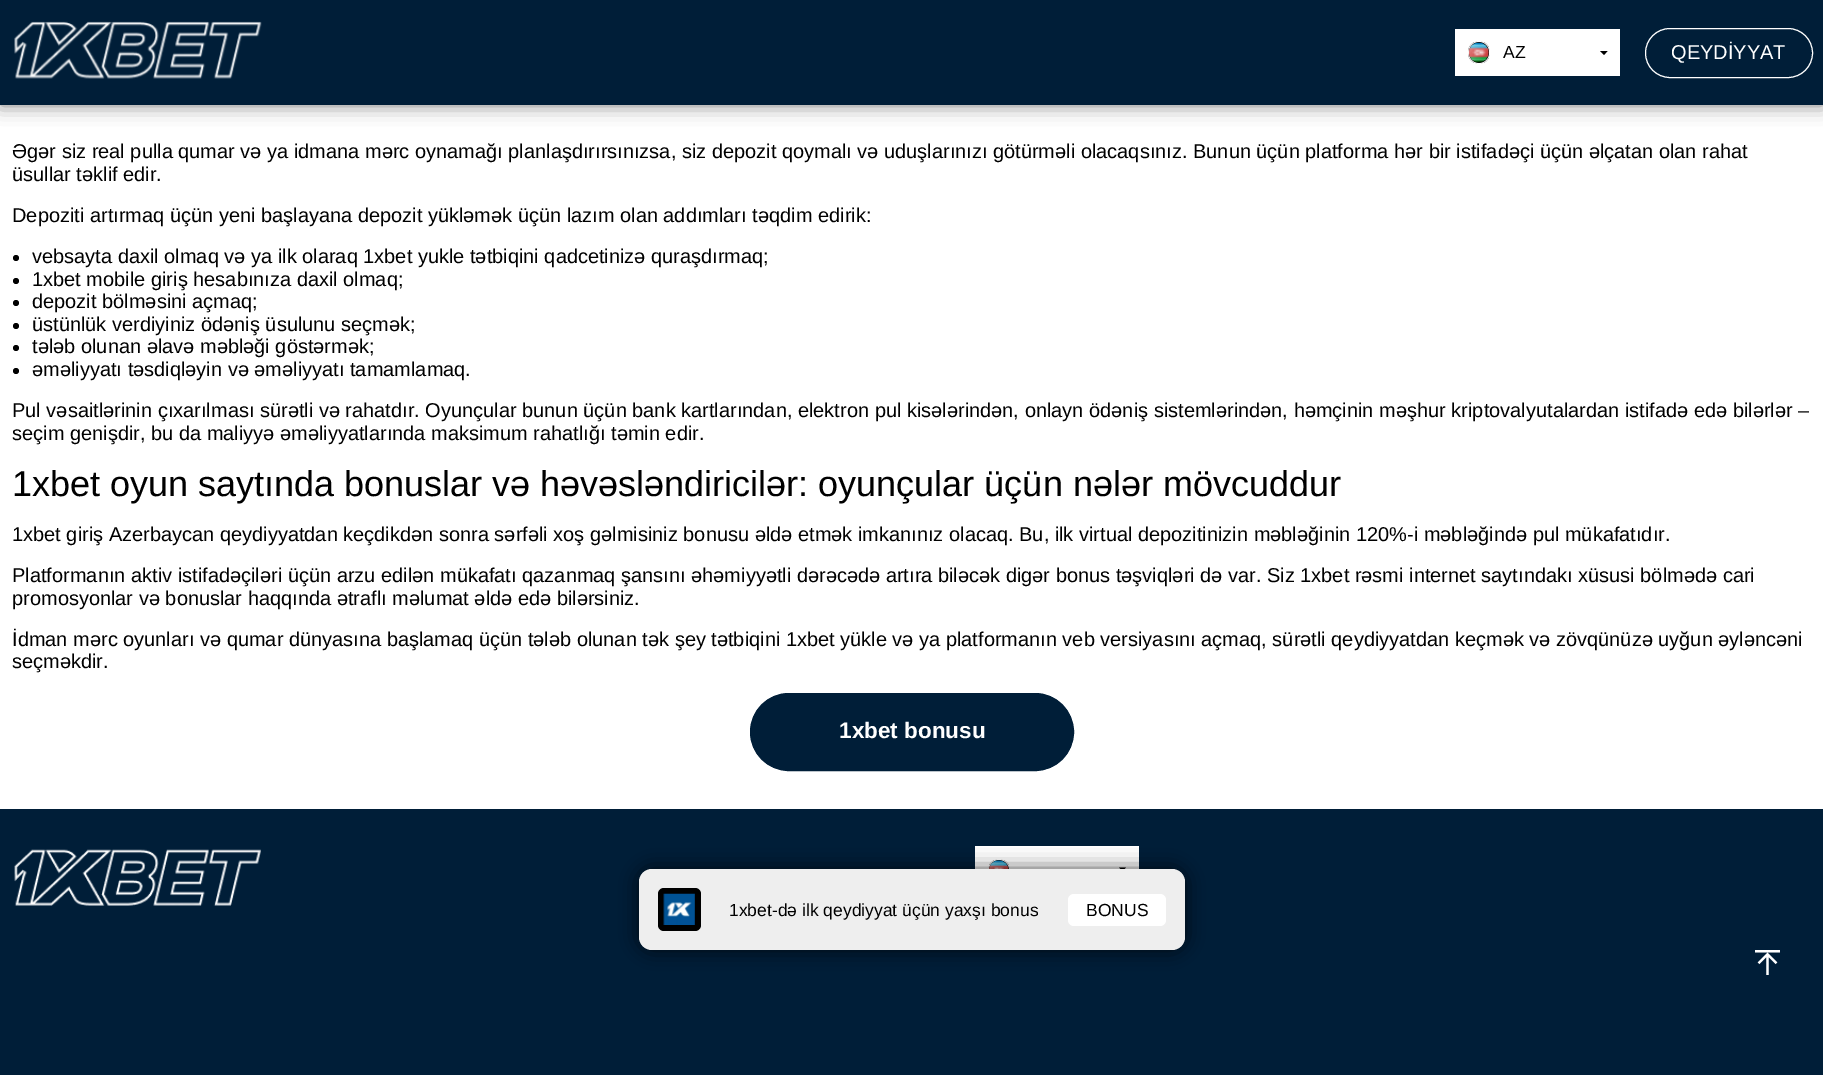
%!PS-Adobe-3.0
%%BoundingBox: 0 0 1823 1075
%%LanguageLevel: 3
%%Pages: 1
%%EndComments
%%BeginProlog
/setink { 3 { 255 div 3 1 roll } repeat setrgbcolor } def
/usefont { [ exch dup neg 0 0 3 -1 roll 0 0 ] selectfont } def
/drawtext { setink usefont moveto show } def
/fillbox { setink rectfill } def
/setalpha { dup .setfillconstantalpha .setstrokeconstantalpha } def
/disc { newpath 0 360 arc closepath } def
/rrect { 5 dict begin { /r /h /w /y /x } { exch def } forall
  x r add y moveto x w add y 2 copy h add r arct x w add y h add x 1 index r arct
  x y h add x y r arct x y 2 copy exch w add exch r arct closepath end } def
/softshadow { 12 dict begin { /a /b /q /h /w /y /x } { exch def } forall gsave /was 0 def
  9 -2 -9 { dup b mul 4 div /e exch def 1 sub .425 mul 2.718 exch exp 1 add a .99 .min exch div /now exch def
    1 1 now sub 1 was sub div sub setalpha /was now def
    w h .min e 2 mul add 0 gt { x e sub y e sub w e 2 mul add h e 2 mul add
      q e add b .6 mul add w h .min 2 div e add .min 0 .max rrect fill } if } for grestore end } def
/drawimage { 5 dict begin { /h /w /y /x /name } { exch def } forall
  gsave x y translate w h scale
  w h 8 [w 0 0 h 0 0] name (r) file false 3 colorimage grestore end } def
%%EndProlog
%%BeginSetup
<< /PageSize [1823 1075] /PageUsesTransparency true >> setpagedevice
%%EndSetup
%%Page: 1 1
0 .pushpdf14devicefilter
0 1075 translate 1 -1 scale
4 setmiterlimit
0 0 1823 1075 255 255 255 fillbox
0 0 0 setink
0 0 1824 105 0 9.5 0.5 softshadow
0 0 1823 105 0 30 56 fillbox
(assets/img1.rgb) 14 21 248 58 drawimage
1455 29 165 47 255 255 255 fillbox
0 0 0 setink
1468.5 41.5 21 22 10.5 rrect gsave fill grestore
255 255 255 setink
stroke
(assets/img2.rgb) 1468 42 21 21 drawimage
(AZ) 1503 58 /LiberationSans-Regular 17.5 0 0 0 drawtext
1600 51 moveto 1607.5 51 lineto 1604 55 lineto closepath fill
255 255 255 setink
1645.5 28.5 167 49 24.5 rrect stroke
(QEYDİYYAT) 1671 59 /LiberationSans-Regular 20 255 255 255 drawtext
(Əgər siz real pulla qumar və ya idmana mərc oynamağı planlaşdırırsınızsa, siz depozit qoymalı və uduşlarınızı götürməli olacaqsınız. Bunun üçün platforma hər bir istifadəçi üçün əlçatan olan rahat) 12 158 /LiberationSans-Regular 20 0 0 0 drawtext
(üsullar təklif edir.) 12 181 /LiberationSans-Regular 20 0 0 0 drawtext
(Depoziti artırmaq üçün yeni başlayana depozit yükləmək üçün lazım olan addımları təqdim edirik:) 12 222 /LiberationSans-Regular 20 0 0 0 drawtext
16 258 3 disc fill
(vebsayta daxil olmaq və ya ilk olaraq 1xbet yukle tətbiqini qadcetinizə quraşdırmaq;) 32 263 /LiberationSans-Regular 20 0 0 0 drawtext
16 281 3 disc fill
(1xbet mobile giriş hesabınıza daxil olmaq;) 32 286 /LiberationSans-Regular 20 0 0 0 drawtext
16 303 3 disc fill
(depozit bölməsini açmaq;) 32 308 /LiberationSans-Regular 20 0 0 0 drawtext
16 326 3 disc fill
(üstünlük verdiyiniz ödəniş üsulunu seçmək;) 32 331 /LiberationSans-Regular 20 0 0 0 drawtext
16 348 3 disc fill
(tələb olunan əlavə məbləği göstərmək;) 32 353 /LiberationSans-Regular 20 0 0 0 drawtext
16 371 3 disc fill
(əməliyyatı təsdiqləyin və əməliyyatı tamamlamaq.) 32 376 /LiberationSans-Regular 20 0 0 0 drawtext
(Pul vəsaitlərinin çıxarılması sürətli və rahatdır. Oyunçular bunun üçün bank kartlarından, elektron pul kisələrindən, onlayn ödəniş sistemlərindən, həmçinin məşhur kriptovalyutalardan istifadə edə bilərlər –) 12 417 /LiberationSans-Regular 20 0 0 0 drawtext
(seçim genişdir, bu da maliyyə əməliyyatlarında maksimum rahatlığı təmin edir.) 12 440 /LiberationSans-Regular 20 0 0 0 drawtext
(1xbet oyun saytında bonuslar və həvəsləndiricilər: oyunçular üçün nələr mövcuddur) 12 496 /LiberationSans-Regular 36 0 0 0 drawtext
(1xbet giriş Azerbaycan qeydiyyatdan keçdikdən sonra sərfəli xoş gəlmisiniz bonusu əldə etmək imkanınız olacaq. Bu, ilk virtual depozitinizin məbləğinin 120%-i məbləğində pul mükafatıdır.) 12 541 /LiberationSans-Regular 20 0 0 0 drawtext
(Platformanın aktiv istifadəçiləri üçün arzu edilən mükafatı qazanmaq şansını əhəmiyyətli dərəcədə artıra biləcək digər bonus təşviqləri də var. Siz 1xbet rəsmi internet saytındakı xüsusi bölmədə cari) 12 582 /LiberationSans-Regular 20 0 0 0 drawtext
(promosyonlar və bonuslar haqqında ətraflı məlumat əldə edə bilərsiniz.) 12 605 /LiberationSans-Regular 20 0 0 0 drawtext
(İdman mərc oyunları və qumar dünyasına başlamaq üçün tələb olunan tək şey tətbiqini 1xbet yükle və ya platformanın veb versiyasını açmaq, sürətli qeydiyyatdan keçmək və zövqünüzə uyğun əyləncəni) 12 646 /LiberationSans-Regular 20 0 0 0 drawtext
(seçməkdir.) 12 668 /LiberationSans-Regular 20 0 0 0 drawtext
0 30 56 setink
750.5 693.5 323 77 38.5 rrect gsave fill grestore
stroke
(1xbet bonusu) 839 738 /LiberationSans-Bold 22.5 255 255 255 drawtext
0 809 1823 266 0 30 56 fillbox
(assets/img3.rgb) 14 849 247 57 drawimage
975 846 164 23 255 255 255 fillbox
0 0 0 setink
999 870 10.5 disc gsave fill grestore
255 255 255 setink
stroke
(assets/img4.rgb) 989 860 20 9 drawimage
0 0 0 setink
1119 867.5 moveto 1126 867.5 lineto 1122.5 871 lineto closepath fill
(assets/img5.rgb) 1755 950 25 25 drawimage
639 869 546 81 13 9.5 0.7 softshadow
238 238 238 setink
639 869 546 81 13 rrect fill
0 0 0 setink
658 888 43 43 6 rrect fill
(assets/img6.rgb) 663 893 32 32 drawimage
(1xbet-də ilk qeydiyyat üçün yaxşı bonus) 729 916 /LiberationSans-Regular 17.5 0 0 0 drawtext
255 255 255 setink
1068 894 98 32 6 rrect fill
(BONUS) 1086 916 /LiberationSans-Regular 17.5 0 0 0 drawtext
.poppdf14devicefilter showpage
%%EOF
